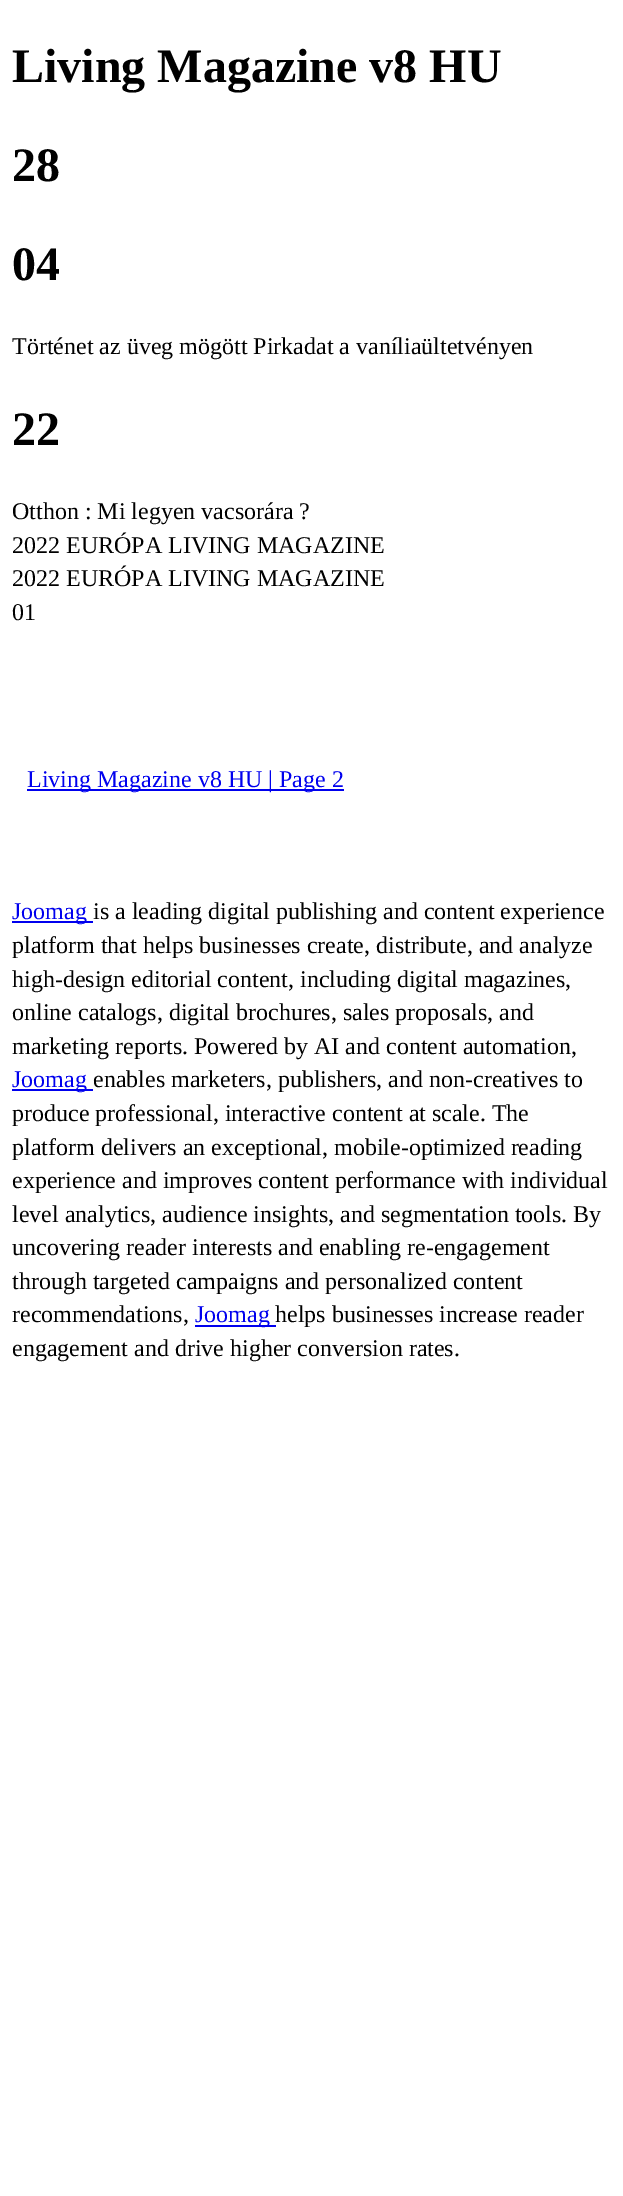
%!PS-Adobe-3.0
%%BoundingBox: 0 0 623 2196
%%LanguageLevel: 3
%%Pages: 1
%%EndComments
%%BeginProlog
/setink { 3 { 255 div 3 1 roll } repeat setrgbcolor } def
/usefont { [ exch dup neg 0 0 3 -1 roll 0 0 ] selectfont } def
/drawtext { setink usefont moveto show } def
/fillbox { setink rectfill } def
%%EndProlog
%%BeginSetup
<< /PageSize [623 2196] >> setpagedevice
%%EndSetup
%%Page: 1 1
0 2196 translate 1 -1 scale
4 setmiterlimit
0 0 623 2196 255 255 255 fillbox
(Living Magazine v8 HU) 12 82 /LiberationSerif-Bold 48 0 0 0 drawtext
(28) 12 181 /LiberationSerif-Bold 48 0 0 0 drawtext
(04) 12 280 /LiberationSerif-Bold 48 0 0 0 drawtext
(Történet az üveg mögött Pirkadat a vaníliaültetvényen) 12 354 /LiberationSerif-Regular 24 0 0 0 drawtext
(22) 12 445 /LiberationSerif-Bold 48 0 0 0 drawtext
(Otthon : Mi legyen vacsorára ?) 12 519 /LiberationSerif-Regular 24 0 0 0 drawtext
(2022 EURÓPA LIVING MAGAZINE) 12 553 /LiberationSerif-Regular 24 0 0 0 drawtext
(2022 EURÓPA LIVING MAGAZINE) 12 586 /LiberationSerif-Regular 24 0 0 0 drawtext
(01) 12 620 /LiberationSerif-Regular 24 0 0 0 drawtext
27 789 317 2 0 0 238 fillbox
(Living Magazine v8 HU | Page 2) 27 787 /LiberationSerif-Regular 24 0 0 238 drawtext
12 921 81 2 0 0 238 fillbox
(Joomag) 12 919 /LiberationSerif-Regular 24 0 0 238 drawtext
(is a leading digital publishing and content experience) 93 919 /LiberationSerif-Regular 24 0 0 0 drawtext
(platform that helps businesses create, distribute, and analyze) 12 953 /LiberationSerif-Regular 24 0 0 0 drawtext
(high-design editorial content, including digital magazines,) 12 987 /LiberationSerif-Regular 24 0 0 0 drawtext
(online catalogs, digital brochures, sales proposals, and) 12 1020 /LiberationSerif-Regular 24 0 0 0 drawtext
(marketing reports. Powered by AI and content automation,) 12 1054 /LiberationSerif-Regular 24 0 0 0 drawtext
12 1089 81 2 0 0 238 fillbox
(Joomag) 12 1087 /LiberationSerif-Regular 24 0 0 238 drawtext
(enables marketers, publishers, and non-creatives to) 93 1087 /LiberationSerif-Regular 24 0 0 0 drawtext
(produce professional, interactive content at scale. The) 12 1121 /LiberationSerif-Regular 24 0 0 0 drawtext
(platform delivers an exceptional, mobile-optimized reading) 12 1155 /LiberationSerif-Regular 24 0 0 0 drawtext
(experience and improves content performance with individual) 12 1188 /LiberationSerif-Regular 24 0 0 0 drawtext
(level analytics, audience insights, and segmentation tools. By) 12 1222 /LiberationSerif-Regular 24 0 0 0 drawtext
(uncovering reader interests and enabling re-engagement) 12 1255 /LiberationSerif-Regular 24 0 0 0 drawtext
(through targeted campaigns and personalized content) 12 1289 /LiberationSerif-Regular 24 0 0 0 drawtext
(recommendations,) 12 1322 /LiberationSerif-Regular 24 0 0 0 drawtext
195 1325 81 2 0 0 238 fillbox
(Joomag) 195 1322 /LiberationSerif-Regular 24 0 0 238 drawtext
(helps businesses increase reader) 275 1322 /LiberationSerif-Regular 24 0 0 0 drawtext
(engagement and drive higher conversion rates.) 12 1356 /LiberationSerif-Regular 24 0 0 0 drawtext
showpage
%%EOF
